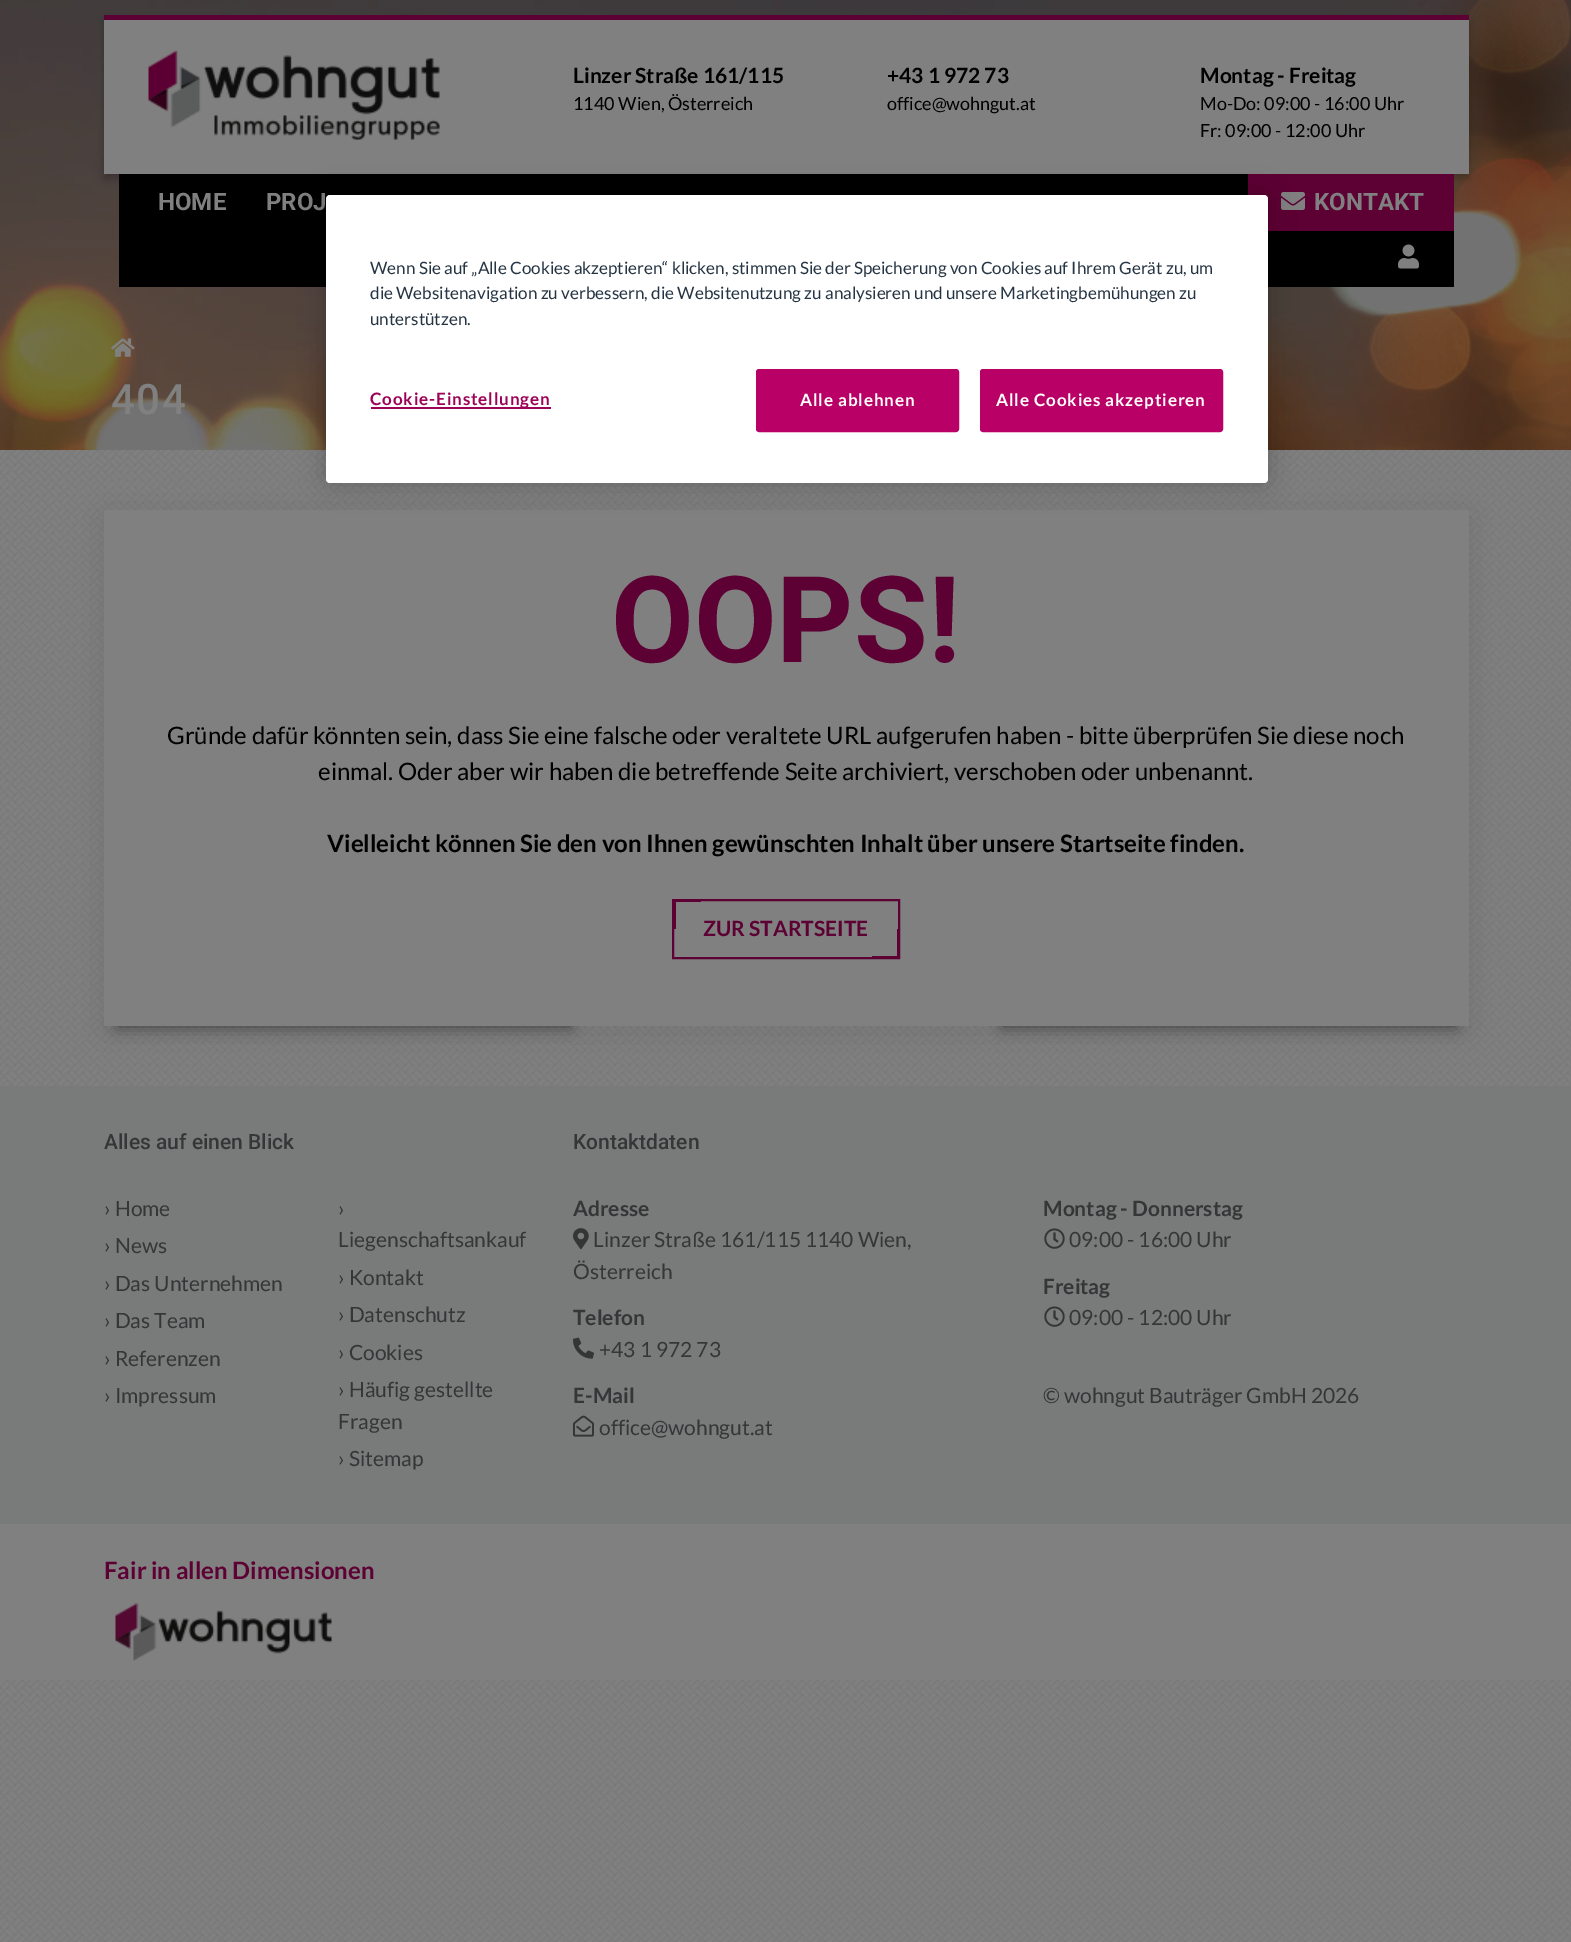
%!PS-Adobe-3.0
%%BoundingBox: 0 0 1571 1942
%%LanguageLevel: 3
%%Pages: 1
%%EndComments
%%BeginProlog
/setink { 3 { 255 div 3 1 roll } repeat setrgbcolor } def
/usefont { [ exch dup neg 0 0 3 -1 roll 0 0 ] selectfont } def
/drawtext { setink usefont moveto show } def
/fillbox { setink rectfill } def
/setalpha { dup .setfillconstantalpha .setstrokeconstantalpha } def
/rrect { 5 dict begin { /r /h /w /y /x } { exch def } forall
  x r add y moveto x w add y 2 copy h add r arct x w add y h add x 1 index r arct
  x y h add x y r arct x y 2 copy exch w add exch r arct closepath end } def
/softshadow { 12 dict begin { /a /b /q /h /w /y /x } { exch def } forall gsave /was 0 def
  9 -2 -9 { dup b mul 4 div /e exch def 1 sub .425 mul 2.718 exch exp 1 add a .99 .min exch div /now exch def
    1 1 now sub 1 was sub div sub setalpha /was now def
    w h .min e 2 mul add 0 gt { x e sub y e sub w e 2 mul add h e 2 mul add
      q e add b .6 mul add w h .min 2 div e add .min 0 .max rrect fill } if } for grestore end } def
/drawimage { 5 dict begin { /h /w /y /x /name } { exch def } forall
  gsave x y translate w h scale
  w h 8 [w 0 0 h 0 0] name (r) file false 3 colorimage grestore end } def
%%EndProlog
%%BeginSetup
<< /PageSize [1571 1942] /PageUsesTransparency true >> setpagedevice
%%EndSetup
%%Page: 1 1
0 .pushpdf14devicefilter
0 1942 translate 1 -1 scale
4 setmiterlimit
0 0 1571 1942 255 255 255 fillbox
(assets/img1.rgb) 0 450 1571 1492 drawimage
(assets/img2.rgb) 0 0 1571 450 drawimage
0 0 0 setink
104 20 1365 159 0 4 0.2 softshadow
104 20 1365 154 128 128 128 fillbox
104 15 1365 5 93 0 51 fillbox
(assets/img3.rgb) 148 50 292 90 drawimage
(Linzer Straße 161/115) 573 83 /Lato-Bold 21 0 0 0 drawtext
(1140 Wien, Österreich) 573 110 /Lato-Regular 18 0 0 0 drawtext
(+43 1 972 73) 887 83 /Lato-Bold 21 0 0 0 drawtext
(office@wohngut.at) 887 110 /Lato-Regular 18 0 0 0 drawtext
(Montag - Freitag) 1200 83 /Lato-Bold 21 0 0 0 drawtext
(Mo-Do: 09:00 - 16:00 Uhr) 1200 110 /Lato-Regular 18 0 0 0 drawtext
(Fr: 09:00 - 12:00 Uhr) 1200 137 /Lato-Regular 18 0 0 0 drawtext
119 174 1335 113 0 0 0 fillbox
(HOME) 158 210 /Roboto-Bold 24 128 128 128 drawtext
(PROJ) 266 210 /Roboto-Bold 24 128 128 128 drawtext
1248 174 206 57 93 0 51 fillbox
(assets/img4.rgb) 1281 192 24 18 drawimage
(KONTAKT) 1314 210 /Roboto-Bold 24 128 128 128 drawtext
(assets/img5.rgb) 1398 244 21 25 drawimage
(assets/img6.rgb) 111 338 24 19 drawimage
/Roboto-Medium 42 usefont
111 414 moveto 1.5 0 (404) ashow
0 1086 1571 438 121 122 122 fillbox
0 0 0 setink
104 515 1365 516 0 19 0.1 softshadow
60 60 60 setink
119 1023 450 3 0 7.5 1 softshadow
1004 1023 450 3 0 7.5 1 softshadow
104 510 1365 516 128 128 128 fillbox
0 0 0 setink
326 195 942 288 4 13.5 0.2 softshadow
255 255 255 setink
326 195 942 288 4 rrect fill
(Wenn Sie auf „Alle Cookies akzeptieren“ klicken, stimmen Sie der Speicherung von Cookies auf Ihrem Gerät zu, um) 370 274 /Lato-Regular 17.05 38 53 68 drawtext
(die Websitenavigation zu verbessern, die Websitenutzung zu analysieren und unsere Marketingbemühungen zu) 370 299 /Lato-Regular 17.05 38 53 68 drawtext
(unterstützen.) 370 325 /Lato-Regular 17.05 38 53 68 drawtext
371 407 180 2 156 2 86 fillbox
/Lato-Bold 17.05 usefont
370 405 moveto 0.85 0 (Cookie-Einstellungen) ashow
185 0 102 setink
757 370 201 61 2 rrect gsave fill grestore
2 setlinewidth
stroke
255 255 255 setink
800 406 moveto 0.85 0 (Alle ablehnen) ashow
185 0 102 setink
981 370 241 61 2 rrect gsave fill grestore
stroke
255 255 255 setink
996 406 moveto 0.85 0 (Alle Cookies akzeptieren) ashow
(OOPS!) 611 662 /Roboto-Bold 120 93 0 51 drawtext
(Gründe dafür könnten sein, dass Sie eine falsche oder veraltete URL aufgerufen haben - bitte überprüfen Sie diese noch) 167 744 /Lato-Regular 24 0 0 0 drawtext
(einmal. Oder aber wir haben die betreffende Seite archiviert, verschoben oder unbenannt.) 318 780 /Lato-Regular 24 0 0 0 drawtext
(Vielleicht können Sie den von Ihnen gewünschten Inhalt über unsere Startseite finden.) 327 852 /Lato-Bold 24 0 0 0 drawtext
93 0 51 setink
673 900 226 58 rectstroke
674 901 27 1 93 0 51 fillbox
674 900 2 29 93 0 51 fillbox
(ZUR STARTSEITE) 703 936 /Lato-Bold 21 93 0 51 drawtext
897 929 1 28 93 0 51 fillbox
872 956 27 1 93 0 51 fillbox
(Alles auf einen Blick) 104 1149 /Roboto-Medium 21 52 54 55 drawtext
(› Home) 104 1216 /Lato-Regular 21 52 54 55 drawtext
(› News) 104 1253 /Lato-Regular 21 52 54 55 drawtext
(› Das Unternehmen) 104 1291 /Lato-Regular 21 52 54 55 drawtext
(› Das Team) 104 1328 /Lato-Regular 21 52 54 55 drawtext
(› Referenzen) 104 1366 /Lato-Regular 21 52 54 55 drawtext
(› Impressum) 104 1403 /Lato-Regular 21 52 54 55 drawtext
(›) 338 1216 /Lato-Regular 21 52 54 55 drawtext
(Liegenschaftsankauf) 338 1247 /Lato-Regular 21 52 54 55 drawtext
(› Kontakt) 338 1285 /Lato-Regular 21 52 54 55 drawtext
(› Datenschutz) 338 1322 /Lato-Regular 21 52 54 55 drawtext
(› Cookies) 338 1360 /Lato-Regular 21 52 54 55 drawtext
(› Häufig gestellte) 338 1397 /Lato-Regular 21 52 54 55 drawtext
(Fragen) 338 1429 /Lato-Regular 21 52 54 55 drawtext
(› Sitemap) 338 1466 /Lato-Regular 21 52 54 55 drawtext
(Kontaktdaten) 573 1149 /Roboto-Medium 21 52 54 55 drawtext
(Adresse) 573 1216 /Lato-Bold 21 52 54 55 drawtext
(assets/img7.rgb) 573 1228 16 22 drawimage
(Linzer Straße 161/115 1140 Wien,) 593 1247 /Lato-Regular 21 52 54 55 drawtext
(Österreich) 573 1279 /Lato-Regular 21 52 54 55 drawtext
(Telefon) 573 1325 /Lato-Bold 21 52 54 55 drawtext
(assets/img8.rgb) 573 1337 21 22 drawimage
(+43 1 972 73) 599 1357 /Lato-Regular 21 52 54 55 drawtext
(E-Mail) 573 1403 /Lato-Bold 21 52 54 55 drawtext
(assets/img9.rgb) 573 1415 21 22 drawimage
(office@wohngut.at) 599 1435 /Lato-Regular 21 52 54 55 drawtext
(Montag - Donnerstag) 1043 1216 /Lato-Bold 21 52 54 55 drawtext
(assets/img10.rgb) 1044 1228 21 21 drawimage
(09:00 - 16:00 Uhr) 1069 1247 /Lato-Regular 21 52 54 55 drawtext
(Freitag) 1043 1294 /Lato-Bold 21 52 54 55 drawtext
(assets/img10.rgb) 1044 1306 21 21 drawimage
(09:00 - 12:00 Uhr) 1069 1325 /Lato-Regular 21 52 54 55 drawtext
(© wohngut Bauträger GmbH 2026) 1043 1403 /Lato-Regular 21 52 54 55 drawtext
0 1524 1571 156 128 128 128 fillbox
(Fair in allen Dimensionen) 104 1579 /Lato-Bold 24 93 0 51 drawtext
(assets/img11.rgb) 115 1603 217 58 drawimage
.poppdf14devicefilter showpage
%%EOF
